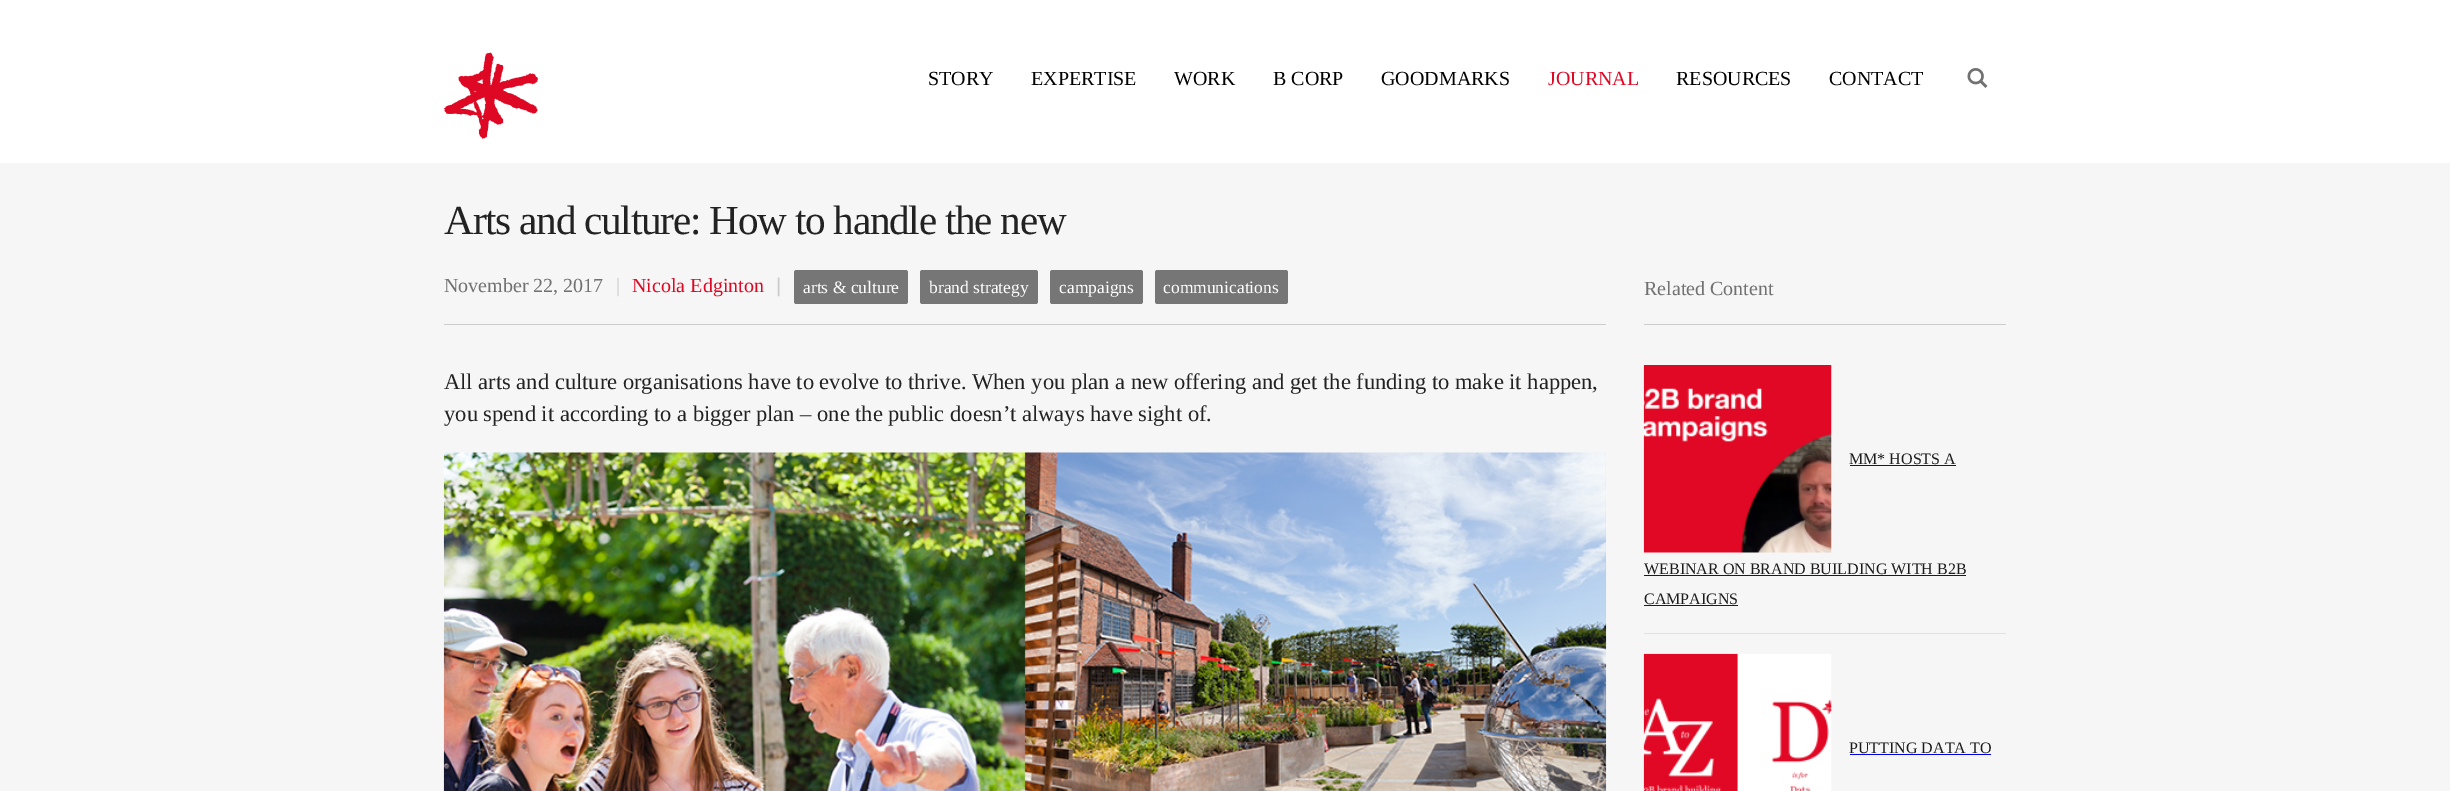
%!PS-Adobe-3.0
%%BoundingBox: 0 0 2450 791
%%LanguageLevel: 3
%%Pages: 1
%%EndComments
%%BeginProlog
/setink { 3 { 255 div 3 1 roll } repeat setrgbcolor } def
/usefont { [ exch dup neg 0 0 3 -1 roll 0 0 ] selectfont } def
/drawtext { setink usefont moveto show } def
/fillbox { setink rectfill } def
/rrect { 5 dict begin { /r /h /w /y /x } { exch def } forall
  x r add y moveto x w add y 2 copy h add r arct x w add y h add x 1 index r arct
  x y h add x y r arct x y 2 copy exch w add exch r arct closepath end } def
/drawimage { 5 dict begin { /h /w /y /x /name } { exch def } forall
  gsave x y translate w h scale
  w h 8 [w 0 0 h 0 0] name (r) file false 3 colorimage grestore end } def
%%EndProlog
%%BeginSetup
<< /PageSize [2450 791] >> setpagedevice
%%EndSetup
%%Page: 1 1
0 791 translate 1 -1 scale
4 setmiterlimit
0 0 2450 791 246 246 246 fillbox
0 0 2450 163 255 255 255 fillbox
(assets/img1.rgb) 443 52 95 87 drawimage
(STORY) 928 85 /LiberationSerif-Regular 20 0 0 0 drawtext
(EXPERTISE) 1031 85 /LiberationSerif-Regular 20 0 0 0 drawtext
(WORK) 1174 85 /LiberationSerif-Regular 20 0 0 0 drawtext
(B CORP) 1273 85 /LiberationSerif-Regular 20 0 0 0 drawtext
(GOODMARKS) 1381 85 /LiberationSerif-Regular 20 0 0 0 drawtext
(JOURNAL) 1548 85 /LiberationSerif-Regular 20 222 8 36 drawtext
(RESOURCES) 1676 85 /LiberationSerif-Regular 20 0 0 0 drawtext
(CONTACT) 1829 85 /LiberationSerif-Regular 20 0 0 0 drawtext
(assets/img2.rgb) 1967 68 21 20 drawimage
444 324 1162 1 205 204 204 fillbox
/LiberationSerif-Regular 41.25 usefont
34 34 34 setink
444 234 moveto -1.25 0 (Arts and culture: How to handle the new) ashow
(November 22, 2017) 444 292 /LiberationSerif-Regular 20 113 113 113 drawtext
(|) 616 292 /LiberationSerif-Regular 20 205 204 204 drawtext
(Nicola Edginton) 632 292 /LiberationSerif-Regular 20 222 8 36 drawtext
(|) 776 292 /LiberationSans-Regular 20 205 204 204 drawtext
118 118 118 setink
794 270 114 34 2.5 rrect fill
(arts & culture) 803 293 /LiberationSerif-Regular 17.5 255 255 255 drawtext
118 118 118 setink
920 270 118 34 2.5 rrect fill
(brand strategy) 929 293 /LiberationSerif-Regular 17.5 255 255 255 drawtext
118 118 118 setink
1050 270 93 34 2.5 rrect fill
(campaigns) 1059 293 /LiberationSerif-Regular 17.5 255 255 255 drawtext
118 118 118 setink
1155 270 133 34 2.5 rrect fill
(communications) 1163 293 /LiberationSerif-Regular 17.5 255 255 255 drawtext
(All arts and culture organisations have to evolve to thrive. When you plan a new offering and get the funding to make it happen,) 444 389 /LiberationSerif-Regular 22.5 34 34 34 drawtext
(you spend it according to a bigger plan – one the public doesn’t always have sight of.) 444 421 /LiberationSerif-Regular 22.5 34 34 34 drawtext
(assets/img3.rgb) 443 452 1164 339 drawimage
1644 324 362 1 205 204 204 fillbox
(Related Content) 1644 295 /LiberationSerif-Regular 20 113 113 113 drawtext
1644 633 362 1 224 224 224 fillbox
(assets/img4.rgb) 1643 365 189 188 drawimage
(MM* HOSTS A) 1849 464 /LiberationSerif-Regular 16 28 26 26 drawtext
1850 465 106 1 0 0 238 fillbox
(WEBINAR ON BRAND BUILDING WITH B2B) 1644 574 /LiberationSerif-Regular 16 28 26 26 drawtext
1644 575 322 1 0 0 238 fillbox
(CAMPAIGNS) 1644 604 /LiberationSerif-Regular 16 28 26 26 drawtext
1644 605 94 1 0 0 238 fillbox
(assets/img5.rgb) 1643 653 189 138 drawimage
(PUTTING DATA TO) 1849 753 /LiberationSerif-Regular 16 28 26 26 drawtext
1850 754 141 1 0 0 238 fillbox
showpage
%%EOF
